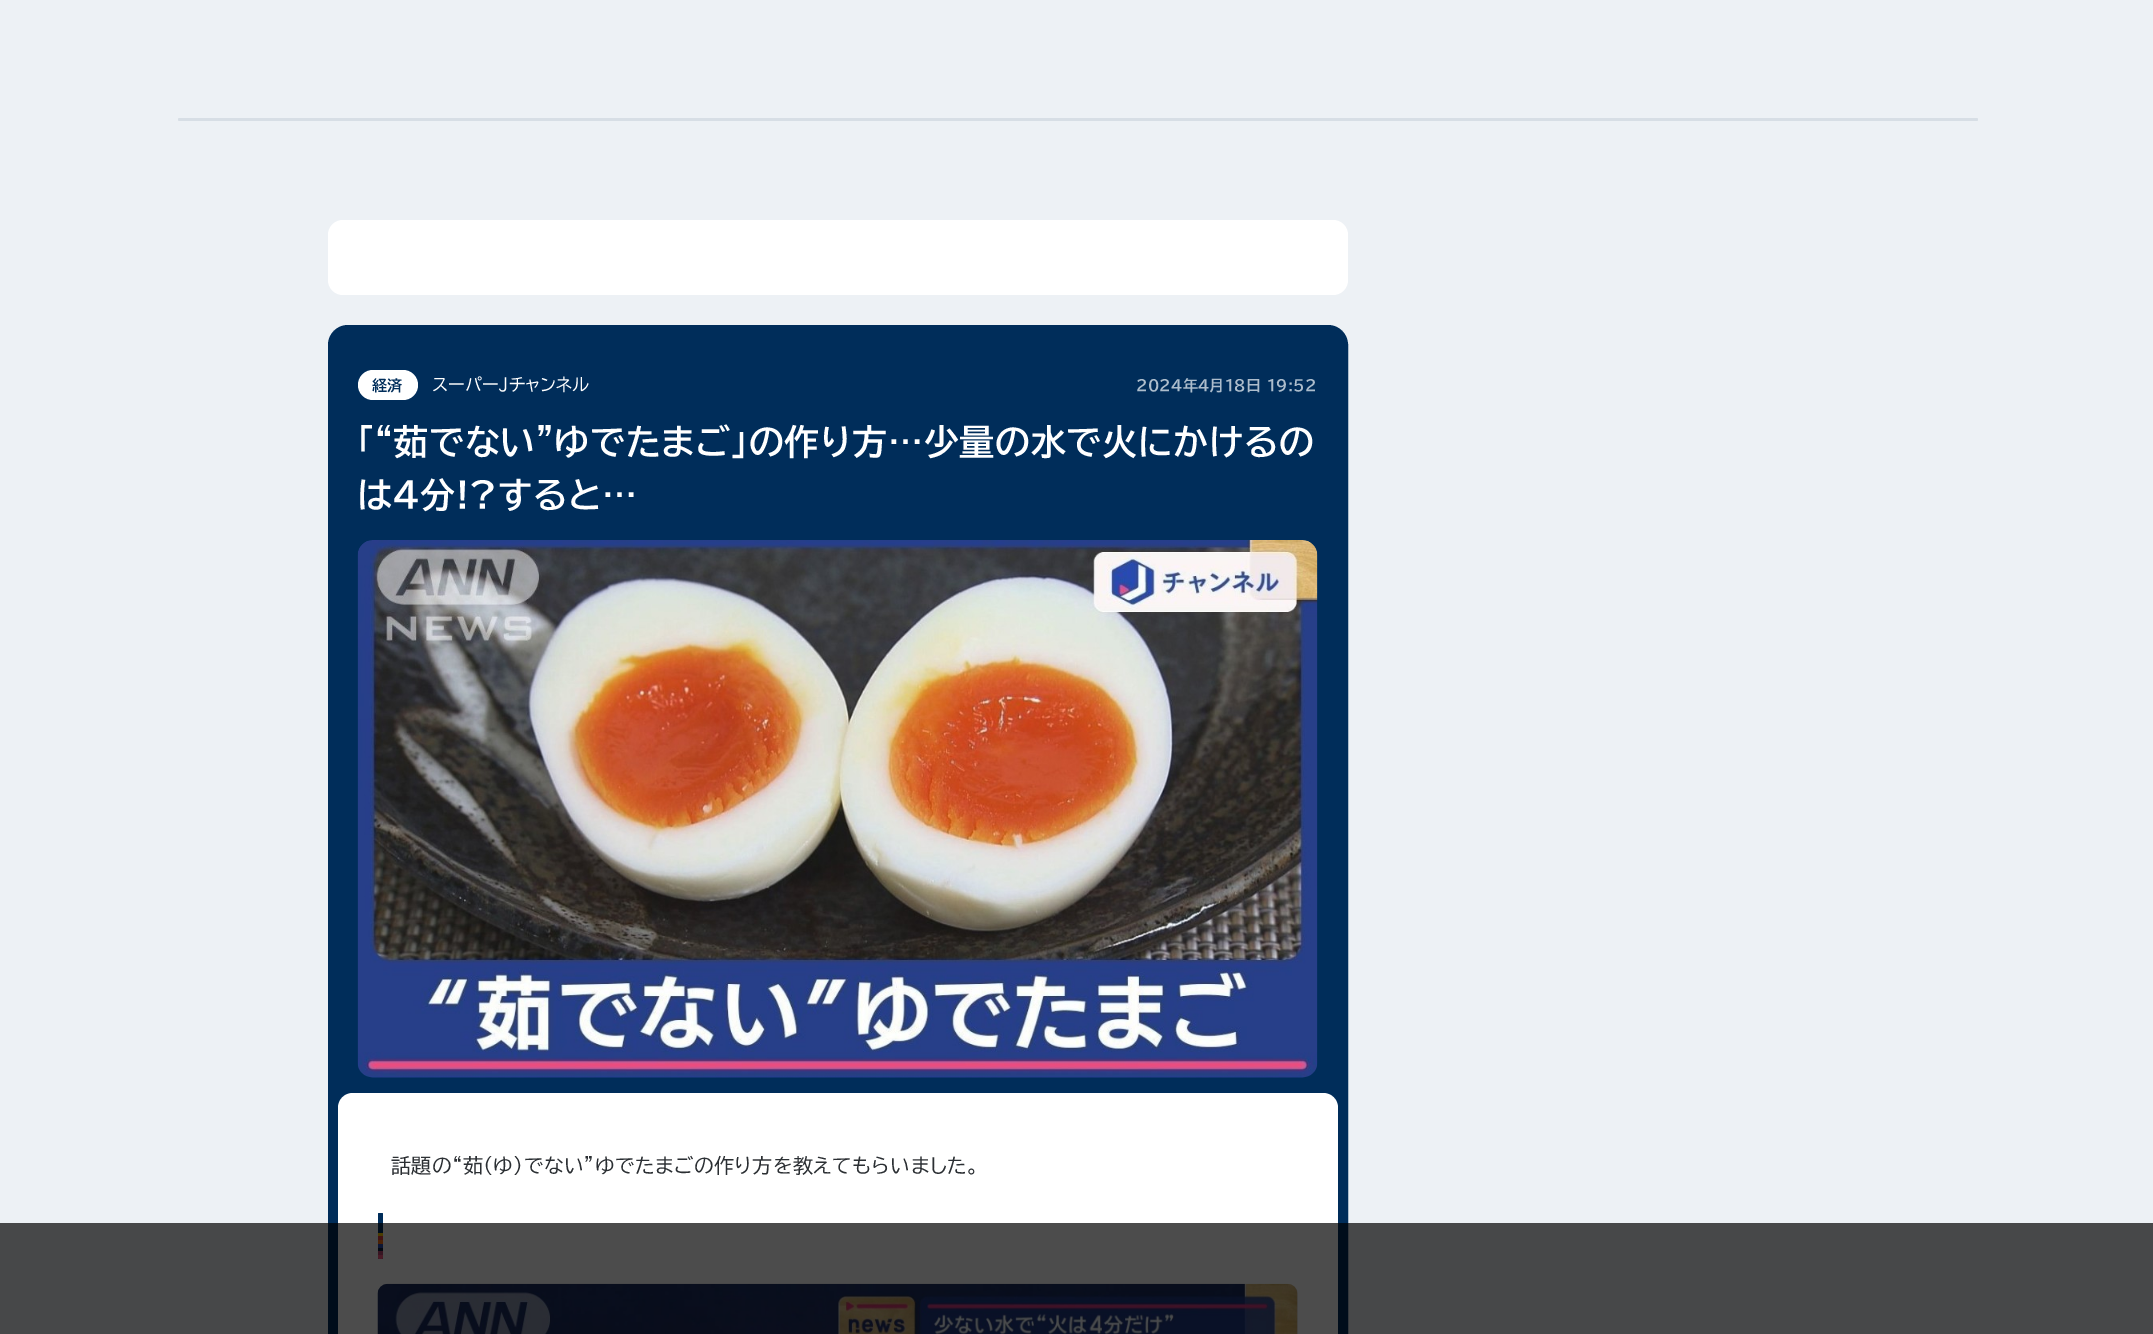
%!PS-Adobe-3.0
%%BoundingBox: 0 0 2153 1334
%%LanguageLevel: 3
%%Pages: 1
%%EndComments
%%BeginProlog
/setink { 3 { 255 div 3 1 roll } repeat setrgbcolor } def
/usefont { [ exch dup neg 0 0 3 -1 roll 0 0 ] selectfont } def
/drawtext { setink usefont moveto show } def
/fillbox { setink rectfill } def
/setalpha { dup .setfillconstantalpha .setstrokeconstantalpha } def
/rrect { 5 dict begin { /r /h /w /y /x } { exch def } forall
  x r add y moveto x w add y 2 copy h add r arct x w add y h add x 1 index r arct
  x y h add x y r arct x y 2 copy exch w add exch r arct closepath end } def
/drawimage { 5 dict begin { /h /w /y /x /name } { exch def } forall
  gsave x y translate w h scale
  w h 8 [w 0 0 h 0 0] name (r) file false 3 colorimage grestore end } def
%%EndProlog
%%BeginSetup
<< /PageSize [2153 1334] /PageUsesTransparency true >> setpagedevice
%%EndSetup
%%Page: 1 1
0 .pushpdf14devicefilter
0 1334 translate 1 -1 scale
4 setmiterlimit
0 0 2153 1334 237 241 245 fillbox
215 222 229 setink
178 118 1800 3 1.5 rrect fill
255 255 255 setink
328 220 1020 75 15 rrect fill
0 45 90 setink
333 330 1010 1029 15 rrect gsave fill grestore
10 setlinewidth
stroke
255 255 255 setink
358 370 60 30 15 rrect fill
/BIZUDPGothic-Bold 15 usefont
0 45 90 setink
372 391 moveto 0.25 0 (経済) ashow
(スーパーJチャンネル) 432 391 /BIZUDPGothic-Regular 17.5 255 255 255 drawtext
/BIZUDPGothic-Bold 15 usefont
173 189 204 setink
1136 391 moveto 0.25 0 (2024年4月18日 19:52) ashow
/BIZUDPGothic-Bold 35 usefont
255 255 255 setink
357 455 moveto 0.7 0 (「“茹でない”ゆでたまご」の作り方…少量の水で火にかけるの) ashow
357 508 moveto 0.7 0 (は4分!?すると…) ashow
(assets/img1.rgb) 357 540 961 538 drawimage
353 1093 moveto 1323 1093 lineto 1331.5 1093 1338 1099.5 1338 1108 curveto 1338 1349 lineto 338 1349 lineto 338 1108 lineto 338 1099.5 344.5 1093 353 1093 curveto closepath fill
/BIZUDPGothic-Regular 20 usefont
43 47 51 setink
391 1173 moveto 0.4 0 (話題の“茹（ゆ）でない”ゆでたまごの作り方を教えてもらいました。) ashow
0 45 90 setink
378 1213 5 46 1 rrect fill
(assets/img2.rgb) 378 1233 5 26 drawimage
238 238 238 setink
378 1284 920 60 10 rrect fill
(assets/img3.rgb) 377 1283 921 51 drawimage
0.7 setalpha
0 1223 2153 111 0 0 0 fillbox
.poppdf14devicefilter showpage
%%EOF
